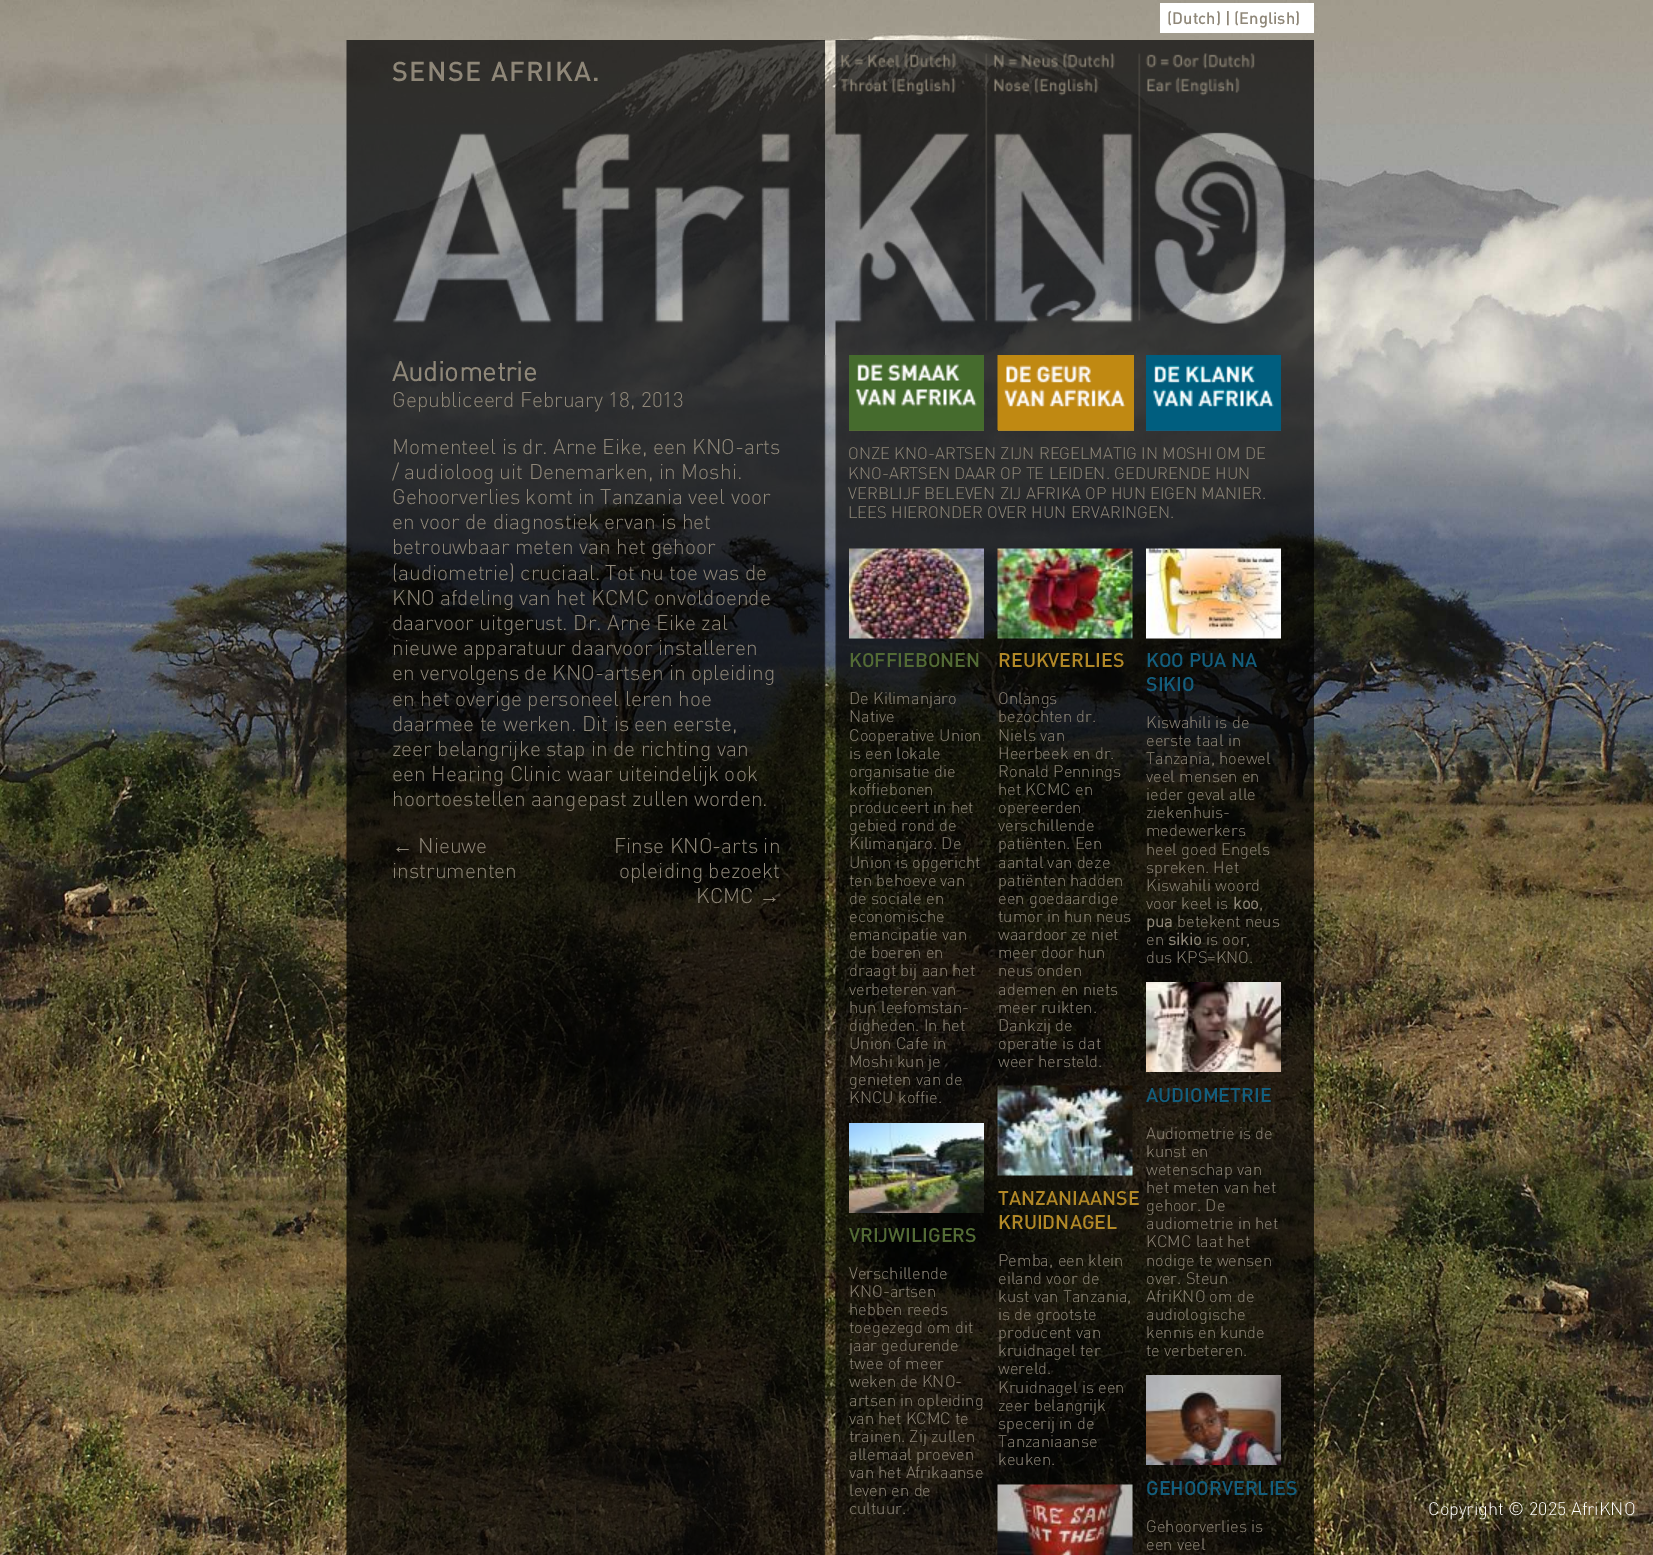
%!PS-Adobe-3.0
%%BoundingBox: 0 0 1653 1555
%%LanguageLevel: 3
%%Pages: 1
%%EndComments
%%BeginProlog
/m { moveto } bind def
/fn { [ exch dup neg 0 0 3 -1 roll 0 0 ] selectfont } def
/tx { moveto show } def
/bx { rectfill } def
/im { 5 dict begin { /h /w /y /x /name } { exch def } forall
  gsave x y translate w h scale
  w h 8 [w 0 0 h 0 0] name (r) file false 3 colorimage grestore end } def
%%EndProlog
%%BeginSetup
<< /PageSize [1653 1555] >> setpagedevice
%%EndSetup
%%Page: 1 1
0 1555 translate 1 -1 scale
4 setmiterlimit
1 setgray
0 0 1653 1555 bx
(image0.raw) 0 0 1653 1555 im
1160 3 154 30 bx
/DIN-Medium 16.5 fn
0.561 0.529 0.471 setrgbcolor
(\(Dutch\) | \(English\)) 1167 24 tx
(image1.raw) 346 40 479 315 im
/DIN-Medium 27 fn
392 81 m 1.4 0 (SENSE AFRIKA.) ashow
(image2.raw) 835 40 479 315 im
(image3.raw) 346 355 968 1200 im
/DIN-Bold 27 fn
(Audiometrie) 392 381 tx
/DIN-Light 21 fn
(Gepubliceerd February 18, 2013) 392 407 tx
(Momenteel is dr. Arne Eike, een KNO-arts) 392 454 tx
(/ audioloog uit Denemarken, in Moshi.) 392 479 tx
(Gehoorverlies komt in Tanzania veel voor) 392 504 tx
(en voor de diagnostiek ervan is het) 392 529 tx
(betrouwbaar meten van het gehoor) 392 554 tx
(\(audiometrie\) cruciaal. Tot nu toe was de) 392 580 tx
(KNO afdeling van het KCMC onvoldoende) 392 605 tx
(daarvoor uitgerust. Dr. Arne Eike zal) 392 630 tx
(nieuwe apparatuur daarvoor installeren) 392 655 tx
(en vervolgens de KNO-artsen in opleiding) 392 680 tx
(en het overige personeel leren hoe) 392 706 tx
(daarmee te werken. Dit is een eerste,) 392 731 tx
(zeer belangrijke stap in de richting van) 392 756 tx
(een Hearing Clinic waar uiteindelijk ook) 392 781 tx
(hoortoestellen aangepast zullen worden.) 392 806 tx
/LiberationSans-Regular 21 fn
(←) 392 853 tx
/DIN-Light 21 fn
(Nieuwe) 418 853 tx
(instrumenten) 392 878 tx
(Finse KNO-arts in) 614 853 tx
(opleiding bezoekt) 619 878 tx
(KCMC) 696 903 tx
/LiberationSans-Regular 21 fn
(→) 759 903 tx
0.325 0.42 0.208 setrgbcolor
849 430 135 1 bx
(image4.raw) 849 355 135 75 im
0.694 0.533 0.153 setrgbcolor
998 430 136 1 bx
(image5.raw) 997 355 137 75 im
0.075 0.369 0.49 setrgbcolor
1146 430 135 1 bx
(image6.raw) 1146 355 135 75 im
/DIN-Light 16.5 fn
0.561 0.529 0.471 setrgbcolor
(ONZE KNO-ARTSEN ZIJN REGELMATIG IN MOSHI OM DE) 848 459 tx
(KNO-ARTSEN DAAR OP TE LEIDEN. GEDURENDE HUN) 848 479 tx
(VERBLIJF BELEVEN ZIJ AFRIKA OP HUN EIGEN MANIER.) 848 499 tx
(LEES HIERONDER OVER HUN ERVARINGEN.) 848 518 tx
(image7.raw) 849 548 135 91 im
/DIN-Medium 19.5 fn
0.325 0.42 0.208 setrgbcolor
(KOFFIEBONEN) 849 667 tx
/DIN-Light 16.5 fn
0.561 0.529 0.471 setrgbcolor
(De Kilimanjaro) 849 704 tx
(Native) 849 722 tx
(Cooperative Union) 849 741 tx
(is een lokale) 849 759 tx
(organisatie die) 849 777 tx
(koffiebonen) 849 795 tx
(produceert in het) 849 813 tx
(gebied rond de) 849 831 tx
(Kilimanjaro. De) 849 849 tx
(Union is opgericht) 849 868 tx
(ten behoeve van) 849 886 tx
(de sociale en) 849 904 tx
(economische) 849 922 tx
(emancipatie van) 849 940 tx
(de boeren en) 849 958 tx
(draagt bij aan het) 849 976 tx
(verbeteren van) 849 995 tx
(hun leefomstan-) 849 1013 tx
(digheden. In het) 849 1031 tx
(Union Cafe in) 849 1049 tx
(Moshi kun je) 849 1067 tx
(genieten van de) 849 1085 tx
(KNCU koffie.) 849 1103 tx
(image8.raw) 849 1123 135 90 im
/DIN-Medium 19.5 fn
0.325 0.42 0.208 setrgbcolor
(VRIJWILIGERS) 849 1242 tx
/DIN-Light 16.5 fn
0.561 0.529 0.471 setrgbcolor
(Verschillende) 849 1279 tx
(KNO-artsen) 849 1297 tx
(hebben reeds) 849 1315 tx
(toegezegd om dit) 849 1333 tx
(jaar gedurende) 849 1351 tx
(twee of meer) 849 1369 tx
(weken de KNO-) 849 1387 tx
(artsen in opleiding) 849 1406 tx
(van het KCMC te) 849 1424 tx
(trainen. Zij zullen) 849 1442 tx
(allemaal proeven) 849 1460 tx
(van het Afrikaanse) 849 1478 tx
(leven en de) 849 1496 tx
(cultuur.) 849 1514 tx
(image9.raw) 997 548 136 91 im
/DIN-Medium 19.5 fn
0.694 0.533 0.153 setrgbcolor
(REUKVERLIES) 998 667 tx
/DIN-Light 16.5 fn
0.561 0.529 0.471 setrgbcolor
(Onlangs) 998 704 tx
(bezochten dr.) 998 722 tx
(Niels van) 998 741 tx
(Heerbeek en dr.) 998 759 tx
(Ronald Pennings) 998 777 tx
(het KCMC en) 998 795 tx
(opereerden) 998 813 tx
(verschillende) 998 831 tx
(patiënten. Een) 998 849 tx
(aantal van deze) 998 868 tx
(patiënten hadden) 998 886 tx
(een goedaardige) 998 904 tx
(tumor in hun neus) 998 922 tx
(waardoor ze niet) 998 940 tx
(meer door hun) 998 958 tx
(neus onden) 998 976 tx
(ademen en niets) 998 995 tx
(meer ruikten.) 998 1013 tx
(Dankzij de) 998 1031 tx
(operatie is dat) 998 1049 tx
(weer hersteld.) 998 1067 tx
(image10.raw) 997 1085 136 91 im
/DIN-Medium 19.5 fn
0.694 0.533 0.153 setrgbcolor
(TANZANIAANSE) 998 1205 tx
(KRUIDNAGEL) 998 1229 tx
/DIN-Light 16.5 fn
0.561 0.529 0.471 setrgbcolor
(Pemba, een klein) 998 1266 tx
(eiland voor de) 998 1284 tx
(kust van Tanzania,) 998 1302 tx
(is de grootste) 998 1320 tx
(producent van) 998 1338 tx
(kruidnagel ter) 998 1356 tx
(wereld.) 998 1374 tx
(Kruidnagel is een) 998 1393 tx
(zeer belangrijk) 998 1411 tx
(specerij in de) 998 1429 tx
(Tanzaniaanse) 998 1447 tx
(keuken.) 998 1465 tx
(image11.raw) 997 1484 136 71 im
(image12.raw) 1146 548 135 91 im
/DIN-Medium 19.5 fn
0.075 0.369 0.49 setrgbcolor
(KOO PUA NA) 1146 667 tx
(SIKIO) 1146 691 tx
/DIN-Light 16.5 fn
0.561 0.529 0.471 setrgbcolor
(Kiswahili is de) 1146 728 tx
(eerste taal in) 1146 746 tx
(Tanzania, hoewel) 1146 764 tx
(veel mensen en) 1146 782 tx
(ieder geval alle) 1146 800 tx
(ziekenhuis-) 1146 818 tx
(medewerkers) 1146 836 tx
(heel goed Engels) 1146 855 tx
(spreken. Het) 1146 873 tx
(Kiswahili woord) 1146 891 tx
(voor keel is) 1146 909 tx
/DIN-Bold 16.5 fn
(koo) 1233 909 tx
/DIN-Light 16.5 fn
(,) 1259 909 tx
/DIN-Bold 16.5 fn
(pua) 1146 927 tx
/DIN-Light 16.5 fn
(betekent neus) 1177 927 tx
(en) 1146 945 tx
/DIN-Bold 16.5 fn
(sikio) 1168 945 tx
/DIN-Light 16.5 fn
(is oor,) 1206 945 tx
(dus KPS=KNO.) 1146 963 tx
(image13.raw) 1146 982 135 90 im
/DIN-Medium 19.5 fn
0.075 0.369 0.49 setrgbcolor
(AUDIOMETRIE) 1146 1102 tx
/DIN-Light 16.5 fn
0.561 0.529 0.471 setrgbcolor
(Audiometrie is de) 1146 1139 tx
(kunst en) 1146 1157 tx
(wetenschap van) 1146 1175 tx
(het meten van het) 1146 1193 tx
(gehoor. De) 1146 1211 tx
(audiometrie in het) 1146 1229 tx
(KCMC laat het) 1146 1247 tx
(nodige te wensen) 1146 1266 tx
(over. Steun) 1146 1284 tx
(AfriKNO om de) 1146 1302 tx
(audiologische) 1146 1320 tx
(kennis en kunde) 1146 1338 tx
(te verbeteren.) 1146 1356 tx
(image14.raw) 1146 1375 135 90 im
/DIN-Medium 19.5 fn
0.075 0.369 0.49 setrgbcolor
(GEHOORVERLIES) 1146 1495 tx
/DIN-Light 16.5 fn
0.561 0.529 0.471 setrgbcolor
(Gehoorverlies is) 1146 1532 tx
(een veel) 1146 1550 tx
/DIN-Light 18 fn
1 setgray
(Copyright © 2025 AfriKNO) 1428 1515 tx
showpage
%%EOF
